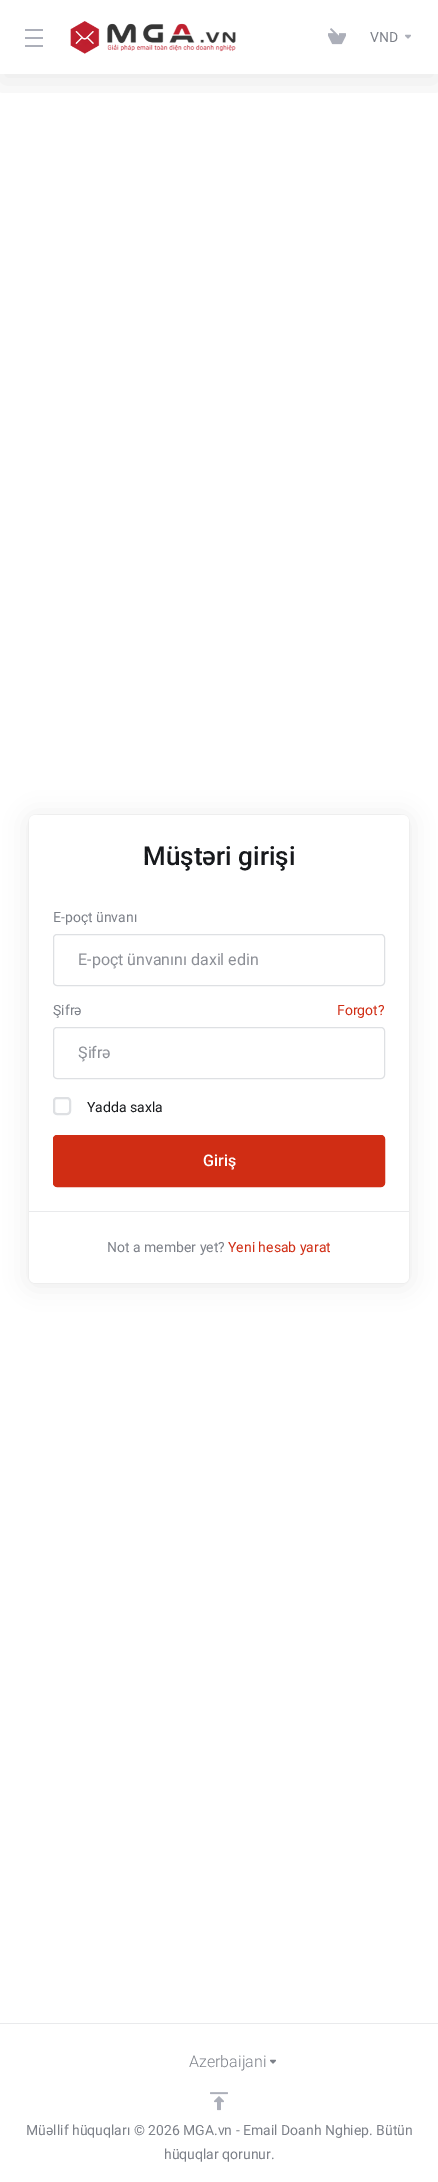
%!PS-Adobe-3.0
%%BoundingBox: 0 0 438 2182
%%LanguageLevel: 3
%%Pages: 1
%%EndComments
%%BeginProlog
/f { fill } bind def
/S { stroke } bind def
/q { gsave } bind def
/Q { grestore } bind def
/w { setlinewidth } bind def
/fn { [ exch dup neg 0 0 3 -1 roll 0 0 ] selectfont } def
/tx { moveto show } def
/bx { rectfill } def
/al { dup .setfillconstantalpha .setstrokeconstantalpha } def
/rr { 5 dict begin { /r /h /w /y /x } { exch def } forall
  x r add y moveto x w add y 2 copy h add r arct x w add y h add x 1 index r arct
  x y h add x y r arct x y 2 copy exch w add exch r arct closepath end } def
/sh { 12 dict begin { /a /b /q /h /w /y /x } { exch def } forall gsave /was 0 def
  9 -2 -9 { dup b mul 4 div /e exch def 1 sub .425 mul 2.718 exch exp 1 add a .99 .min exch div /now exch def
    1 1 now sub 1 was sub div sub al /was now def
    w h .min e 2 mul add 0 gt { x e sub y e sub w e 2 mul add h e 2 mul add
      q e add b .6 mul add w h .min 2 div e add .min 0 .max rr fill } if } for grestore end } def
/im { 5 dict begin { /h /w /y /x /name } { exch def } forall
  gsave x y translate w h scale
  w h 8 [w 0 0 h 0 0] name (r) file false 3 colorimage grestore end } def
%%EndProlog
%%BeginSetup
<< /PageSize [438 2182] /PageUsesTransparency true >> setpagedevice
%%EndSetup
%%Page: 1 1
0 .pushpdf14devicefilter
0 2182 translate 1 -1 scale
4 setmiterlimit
1 setgray
0 0 438 2182 bx
q
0 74 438 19 rectclip
0 setgray
0 8 438 74 0 16 0.08 sh
Q
0.675 0.686 0.725 setrgbcolor
25 29 18 2 bx
25 37 18 2 bx
25 45 18 2 bx
(image0.raw) 70 21 166 33 im
(image1.raw) 328 28 18 17 im
/Roboto-Regular 14 fn
0.486 0.502 0.533 setrgbcolor
(VND) 370 42 tx
(image2.raw) 405 34 6 5 im
0 setgray
29 817 380 468 6 12 0.08 sh
29 815 380 468 6 0.5 0.1 sh
1 setgray
29 815 380 468 6 rr f
/Roboto-Medium 26 fn
0.09 0.098 0.11 setrgbcolor
(Müştəri girişi) 143 865 tx
/Roboto-Regular 14 fn
0.486 0.502 0.533 setrgbcolor
(E-poçt ünvanı) 53 922 tx
0.871 0.878 0.89 setrgbcolor
53.5 934.5 331 51 3.5 rr S
/Roboto-Regular 16 fn
0.549 0.561 0.588 setrgbcolor
(E-poçt ünvanını daxil edin) 78 965 tx
/Roboto-Regular 14 fn
0.486 0.502 0.533 setrgbcolor
(Şifrə) 53 1015 tx
0.816 0.176 0.078 setrgbcolor
(Forgot?) 337 1015 tx
0.871 0.878 0.89 setrgbcolor
53.5 1027.5 331 51 3.5 rr S
/Roboto-Regular 16 fn
0.549 0.561 0.588 setrgbcolor
(Şifrə) 78 1058 tx
0.871 0.878 0.89 setrgbcolor
2 w
54 1098 16 16 3 rr S
/Roboto-Regular 14 fn
0.09 0.098 0.11 setrgbcolor
(Yadda saxla) 87 1112 tx
0.816 0.176 0.078 setrgbcolor
53.5 1135.5 331 51 3.5 rr q f Q
1 w
S
/Roboto-Medium 16 fn
1 setgray
(Giriş) 203 1166 tx
0.914 0.918 0.925 setrgbcolor
29 1211 380 1 bx
/Roboto-Regular 14 fn
0.486 0.502 0.533 setrgbcolor
(Not a member yet?) 107 1252 tx
0.816 0.176 0.078 setrgbcolor
(Yeni hesab yarat) 228 1252 tx
0.914 0.918 0.925 setrgbcolor
0 2023 438 1 bx
/Roboto-Light 16 fn
0.486 0.502 0.533 setrgbcolor
(Azerbaijani) 189 2067 tx
(image3.raw) 270 2059 6 5 im
(image4.raw) 210 2092 18 19 im
/Roboto-Regular 14 fn
(Müəllif hüquqları © 2026 MGA.vn - Email Doanh Nghiep. Bütün) 26 2135 tx
(hüquqlar qorunur.) 164 2159 tx
.poppdf14devicefilter showpage
%%EOF
